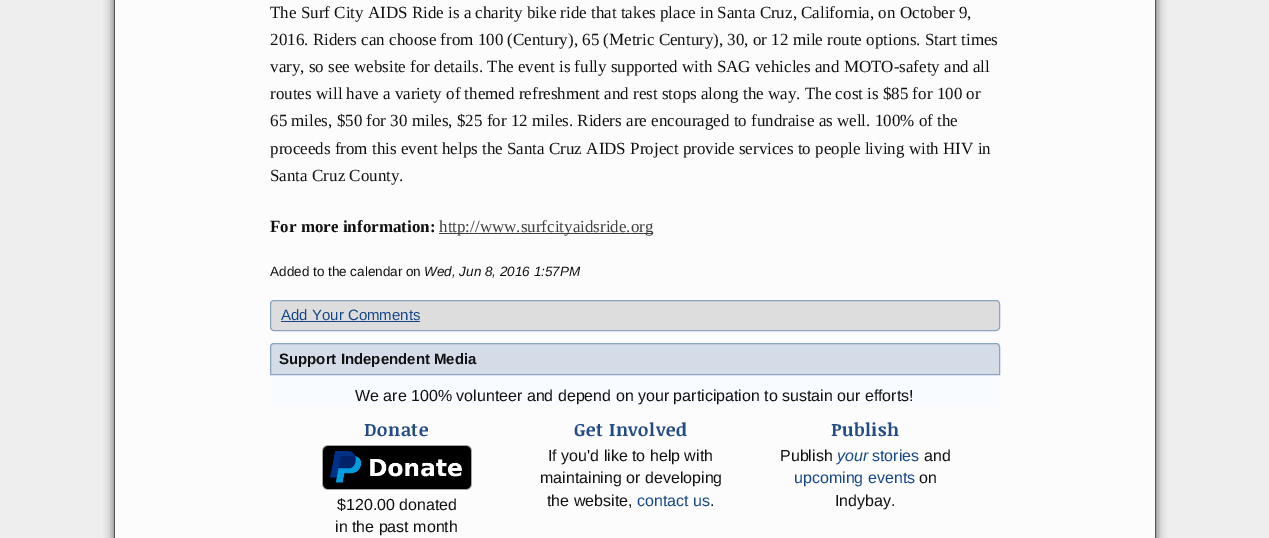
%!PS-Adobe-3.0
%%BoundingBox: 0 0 1269 538
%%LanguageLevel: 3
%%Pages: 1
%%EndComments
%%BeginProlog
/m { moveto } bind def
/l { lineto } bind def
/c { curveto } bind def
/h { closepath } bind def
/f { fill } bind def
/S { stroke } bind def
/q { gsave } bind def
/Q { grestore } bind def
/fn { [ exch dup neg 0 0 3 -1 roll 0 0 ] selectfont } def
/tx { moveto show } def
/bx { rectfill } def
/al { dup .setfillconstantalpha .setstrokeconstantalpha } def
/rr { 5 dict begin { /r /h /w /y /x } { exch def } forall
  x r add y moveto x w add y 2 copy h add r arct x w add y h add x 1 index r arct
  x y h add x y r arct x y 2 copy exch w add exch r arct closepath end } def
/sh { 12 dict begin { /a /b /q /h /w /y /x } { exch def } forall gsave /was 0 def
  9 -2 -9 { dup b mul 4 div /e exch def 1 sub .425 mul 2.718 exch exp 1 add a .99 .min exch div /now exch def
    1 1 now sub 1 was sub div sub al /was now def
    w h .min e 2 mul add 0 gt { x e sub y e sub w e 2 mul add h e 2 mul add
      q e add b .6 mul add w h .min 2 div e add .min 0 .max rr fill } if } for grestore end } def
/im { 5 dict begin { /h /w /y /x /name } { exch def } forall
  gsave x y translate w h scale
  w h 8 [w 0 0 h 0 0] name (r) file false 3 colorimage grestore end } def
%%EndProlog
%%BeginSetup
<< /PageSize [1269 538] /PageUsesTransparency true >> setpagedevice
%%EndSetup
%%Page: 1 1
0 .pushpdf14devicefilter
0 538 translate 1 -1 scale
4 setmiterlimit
0.933 setgray
0 0 1269 538 bx
0 setgray
114 -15 1042 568 0 5 0.65 sh
0.988 setgray
115 0 1040 538 bx
0.345 setgray
1155 0 1 538 bx
114 0 1 538 bx
/LiberationSerif-Regular 17 fn
0.067 setgray
(The Surf City AIDS Ride is a charity bike ride that takes place in Santa Cruz, California, on October 9,) 270 18 tx
(2016. Riders can choose from 100 \(Century\), 65 \(Metric Century\), 30, or 12 mile route options. Start times) 270 45 tx
(vary, so see website for details. The event is fully supported with SAG vehicles and MOTO-safety and all) 270 72 tx
(routes will have a variety of themed refreshment and rest stops along the way. The cost is $85 for 100 or) 270 99 tx
(65 miles, $50 for 30 miles, $25 for 12 miles. Riders are encouraged to fundraise as well. 100% of the) 270 126 tx
(proceeds from this event helps the Santa Cruz AIDS Project provide services to people living with HIV in) 270 154 tx
(Santa Cruz County.) 270 181 tx
/LiberationSerif-Bold 17 fn
(For more information:) 270 232 tx
0.251 setgray
439 233 214 1 bx
/LiberationSerif-Regular 17 fn
(http://www.surfcityaidsride.org) 439 232 tx
/LiberationSans-Regular 13.5 fn
0.067 setgray
(Added to the calendar on) 270 276 tx
/LiberationSans-Italic 13.5 fn
(Wed, Jun 8, 2016 1:57PM) 424 276 tx
0.867 setgray
270.5 300.5 729 30 3.5 rr q f Q
0.553 0.639 0.769 setrgbcolor
S
/LiberationSans-Regular 15 fn
0.086 0.282 0.533 setrgbcolor
(Add Your Comments) 281 320 tx
281 321 139 1 bx
0.973 0.984 1 setrgbcolor
270 343 m 1000 343 l 1000 402 l 1000 404 998 406 996 406 c 274 406 l 272 406 270 404 270 402 c h f
0.831 0.863 0.91 setrgbcolor
274 343.5 m 996 343.5 l 998 343.5 999.5 345 999.5 347 c 999.5 374.5 l 270.5 374.5 l 270.5 347 l 270.5 345 272 343.5 274 343.5 c h q f Q
0.553 0.639 0.769 setrgbcolor
S
/LiberationSans-Bold 15 fn
0.067 setgray
(Support Independent Media) 279 364 tx
/LiberationSans-Regular 16 fn
(We are 100% volunteer and depend on your participation to sustain our efforts!) 355 401 tx
/NoticiaText-Bold 18 fn
0.137 0.298 0.525 setrgbcolor
364 436 m 0.5 0 (Donate) ashow
(image0.raw) 322 445 150 45 im
/LiberationSans-Regular 16 fn
0.067 setgray
($120.00 donated) 337 510 tx
(in the past month) 335 532 tx
/NoticiaText-Bold 18 fn
0.137 0.298 0.525 setrgbcolor
574 436 m 0.5 0 (Get Involved) ashow
/LiberationSans-Regular 16 fn
0.067 setgray
(If you'd like to help with) 548 461 tx
(maintaining or developing) 540 483 tx
(the website,) 547 506 tx
0.086 0.282 0.533 setrgbcolor
(contact us) 637 506 tx
0.067 setgray
(.) 710 506 tx
/NoticiaText-Bold 18 fn
0.137 0.298 0.525 setrgbcolor
831 436 m 0.5 0 (Publish) ashow
/LiberationSans-Regular 16 fn
0.067 setgray
(Publish) 780 461 tx
/LiberationSans-Italic 16 fn
0.086 0.282 0.533 setrgbcolor
(your) 837 461 tx
/LiberationSans-Regular 16 fn
(stories) 872 461 tx
0.067 setgray
(and) 924 461 tx
0.086 0.282 0.533 setrgbcolor
(upcoming events) 794 483 tx
0.067 setgray
(on) 919 483 tx
(Indybay.) 835 506 tx
.poppdf14devicefilter showpage
%%EOF
